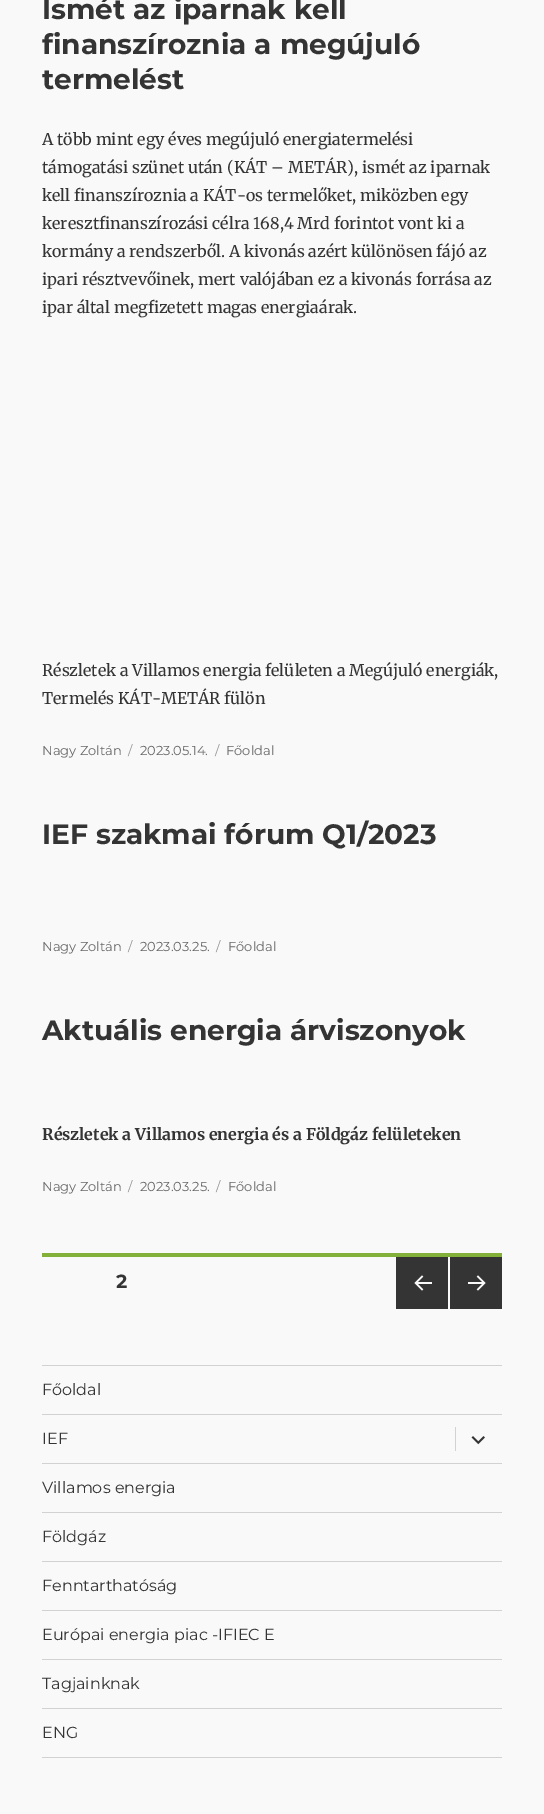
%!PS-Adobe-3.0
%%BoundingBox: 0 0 544 1814
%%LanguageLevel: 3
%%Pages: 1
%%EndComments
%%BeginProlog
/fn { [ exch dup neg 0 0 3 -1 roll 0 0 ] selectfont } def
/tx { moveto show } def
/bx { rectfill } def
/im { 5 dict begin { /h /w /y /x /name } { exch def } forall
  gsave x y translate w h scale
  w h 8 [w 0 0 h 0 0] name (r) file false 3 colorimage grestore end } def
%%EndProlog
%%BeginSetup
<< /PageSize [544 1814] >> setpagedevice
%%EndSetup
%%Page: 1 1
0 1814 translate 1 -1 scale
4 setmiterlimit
0.976 setgray
0 0 544 1814 bx
/Montserrat-Bold 28 fn
0.204 setgray
(Ismét az iparnak kell) 42 19 tx
(finanszíroznia a megújuló) 42 54 tx
(termelést) 42 89 tx
/Merriweather-Regular 16 fn
(A több mint egy éves megújuló energiatermelési) 42 145 tx
(támogatási szünet után \(KÁT – METÁR\), ismét az iparnak) 42 173 tx
(kell finanszíroznia a KÁT-os termelőket, miközben egy) 42 201 tx
(keresztfinanszírozási célra 168,4 Mrd forintot vont ki a) 42 229 tx
(kormány a rendszerből. A kivonás azért különösen fájó az) 42 257 tx
(ipari résztvevőinek, mert valójában ez a kivonás forrása az) 42 285 tx
(ipar által megfizetett magas energiaárak.) 42 313 tx
(Részletek a Villamos energia felületen a Megújuló energiák,) 42 676 tx
(Termelés KÁT-METÁR fülön) 42 704 tx
/Montserrat-Regular 13 fn
0.408 setgray
(Nagy Zoltán) 42 755 tx
0.58 setgray
(/) 128 755 tx
0.408 setgray
(2023.05.14.) 140 755 tx
0.58 setgray
(/) 215 755 tx
0.408 setgray
(Főoldal) 226 755 tx
/Montserrat-Bold 28 fn
0.204 setgray
(IEF szakmai fórum Q1/2023) 42 844 tx
/Montserrat-Regular 13 fn
0.408 setgray
(Nagy Zoltán) 42 951 tx
0.58 setgray
(/) 128 951 tx
0.408 setgray
(2023.03.25.) 140 951 tx
0.58 setgray
(/) 216 951 tx
0.408 setgray
(Főoldal) 228 951 tx
/Montserrat-Bold 28 fn
0.204 setgray
(Aktuális energia árviszonyok) 42 1040 tx
/Merriweather-Bold 16 fn
(Részletek a Villamos energia és a Földgáz felületeken) 42 1140 tx
/Montserrat-Regular 13 fn
0.408 setgray
(Nagy Zoltán) 42 1191 tx
0.58 setgray
(/) 128 1191 tx
0.408 setgray
(2023.03.25.) 140 1191 tx
0.58 setgray
(/) 216 1191 tx
0.408 setgray
(Főoldal) 228 1191 tx
0.514 0.69 0.22 setrgbcolor
42 1253 460 4 bx
/Montserrat-Bold 19 fn
0.204 setgray
(2) 116 1288 tx
396 1257 52 52 bx
(image0.raw) 414 1275 18 16 im
450 1257 52 52 bx
(image1.raw) 468 1275 18 16 im
0.824 setgray
42 1757 460 1 bx
42 1365 460 1 bx
/Montserrat-Regular 16 fn
0.204 setgray
(Főoldal) 42 1395 tx
0.824 setgray
42 1414 460 1 bx
0.204 setgray
(IEF) 42 1444 tx
0.824 setgray
455 1427 1 24 bx
(image2.raw) 471 1436 14 9 im
42 1463 460 1 bx
0.204 setgray
(Villamos energia) 42 1493 tx
0.824 setgray
42 1512 460 1 bx
0.204 setgray
(Földgáz) 42 1542 tx
0.824 setgray
42 1561 460 1 bx
0.204 setgray
(Fenntarthatóság) 42 1591 tx
0.824 setgray
42 1610 460 1 bx
0.204 setgray
(Európai energia piac -IFIEC E) 42 1640 tx
0.824 setgray
42 1659 460 1 bx
0.204 setgray
(Tagjainknak) 42 1689 tx
0.824 setgray
42 1708 460 1 bx
0.204 setgray
(ENG) 42 1738 tx
showpage
%%EOF
